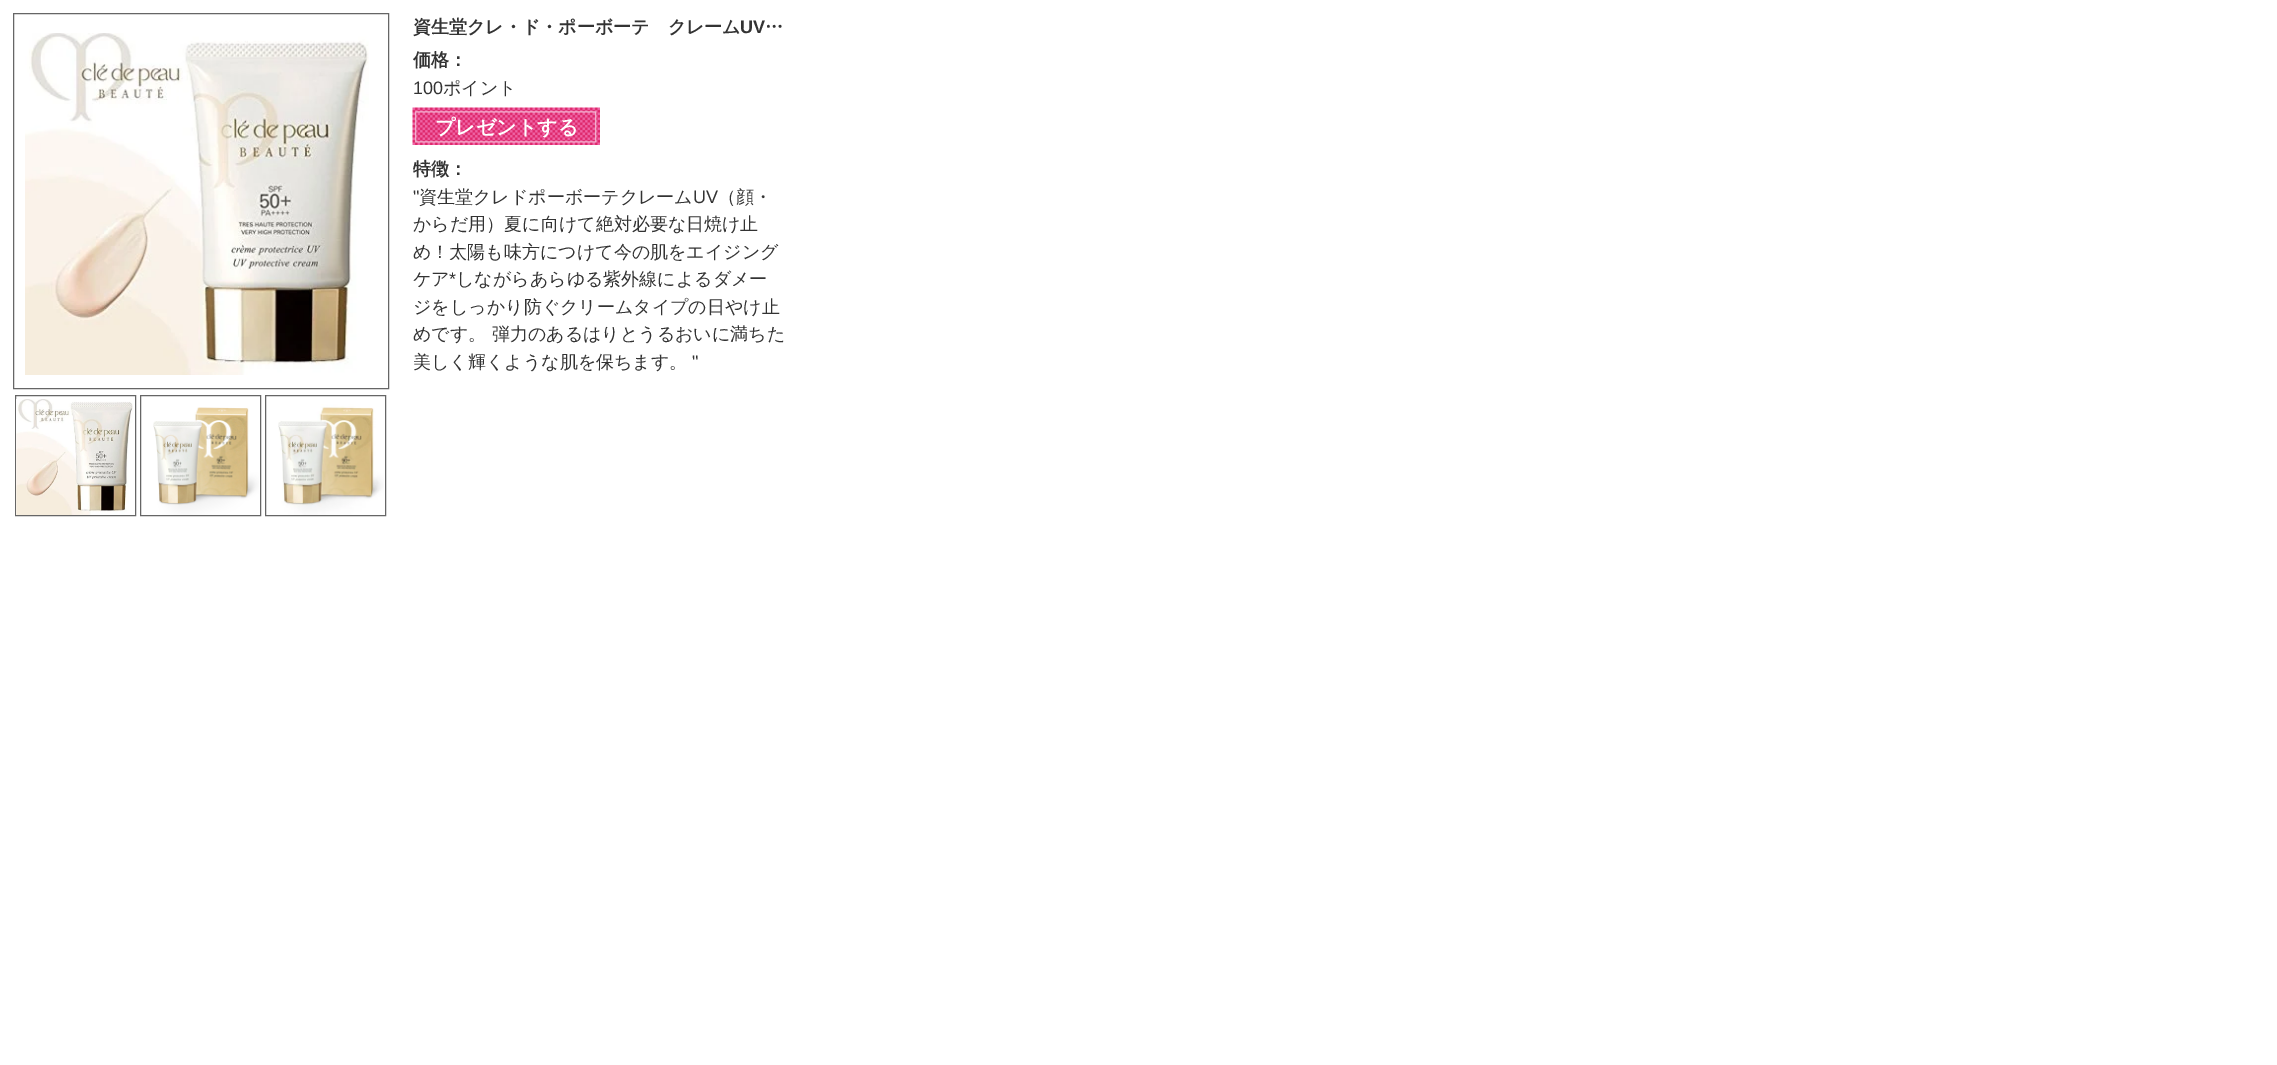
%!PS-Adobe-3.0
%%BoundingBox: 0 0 2277 1065
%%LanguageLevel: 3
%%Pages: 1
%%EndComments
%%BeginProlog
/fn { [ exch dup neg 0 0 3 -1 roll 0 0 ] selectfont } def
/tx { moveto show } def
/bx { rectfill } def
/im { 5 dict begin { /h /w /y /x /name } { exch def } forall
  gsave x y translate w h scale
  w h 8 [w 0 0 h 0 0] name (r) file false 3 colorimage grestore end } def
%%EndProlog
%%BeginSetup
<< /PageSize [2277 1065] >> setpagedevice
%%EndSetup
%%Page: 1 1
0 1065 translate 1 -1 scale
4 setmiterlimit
1 setgray
0 0 2277 1065 bx
0.4 setgray
13.5 13.5 375 375 rectstroke
(image0.raw) 25 33 344 342 im
15.5 395.5 120 120 rectstroke
(image1.raw) 16 399 117 116 im
140.5 395.5 120 120 rectstroke
(image2.raw) 153 407 106 108 im
265.5 395.5 120 120 rectstroke
(image3.raw) 278 404 106 111 im
/WenQuanYiZenHei-Bold 18 fn
0.2 setgray
(資生堂クレ・ド・ポーボーテ　クレーム) 413 33 tx
/LiberationSans-Bold 18 fn
(UV) 740 33 tx
/WenQuanYiZenHei-Bold 18 fn
(…) 765 33 tx
(価格：) 413 66 tx
/LiberationSans-Regular 18 fn
(100) 413 94 tx
/WenQuanYiZenHei-Medium 18 fn
(ポイント) 443 94 tx
(image4.raw) 412 107 188 38 im
/WenQuanYiZenHei-Bold 20 fn
1 setgray
(プレゼントする) 435 134 tx
/WenQuanYiZenHei-Bold 18 fn
0.2 setgray
(特徴：) 413 175 tx
/LiberationSans-Regular 18 fn
(") 413 203 tx
/WenQuanYiZenHei-Medium 18 fn
(資生堂クレドポーボーテクレーム) 419 203 tx
/LiberationSans-Regular 18 fn
(UV) 693 203 tx
/WenQuanYiZenHei-Medium 18 fn
(（顔・) 718 203 tx
(からだ用）夏に向けて絶対必要な日焼け止) 413 230 tx
(め！太陽も味方につけて今の肌をエイジング) 413 258 tx
(ケア) 413 285 tx
/LiberationSans-Regular 18 fn
(*) 449 285 tx
/WenQuanYiZenHei-Medium 18 fn
(しながらあらゆる紫外線によるダメー) 456 285 tx
(ジをしっかり防ぐクリームタイプの日やけ止) 413 313 tx
(めです。 弾力のあるはりとうるおいに満ちた) 413 340 tx
(美しく輝くような肌を保ちます。) 413 368 tx
/LiberationSans-Regular 18 fn
(") 692 368 tx
showpage
%%EOF
